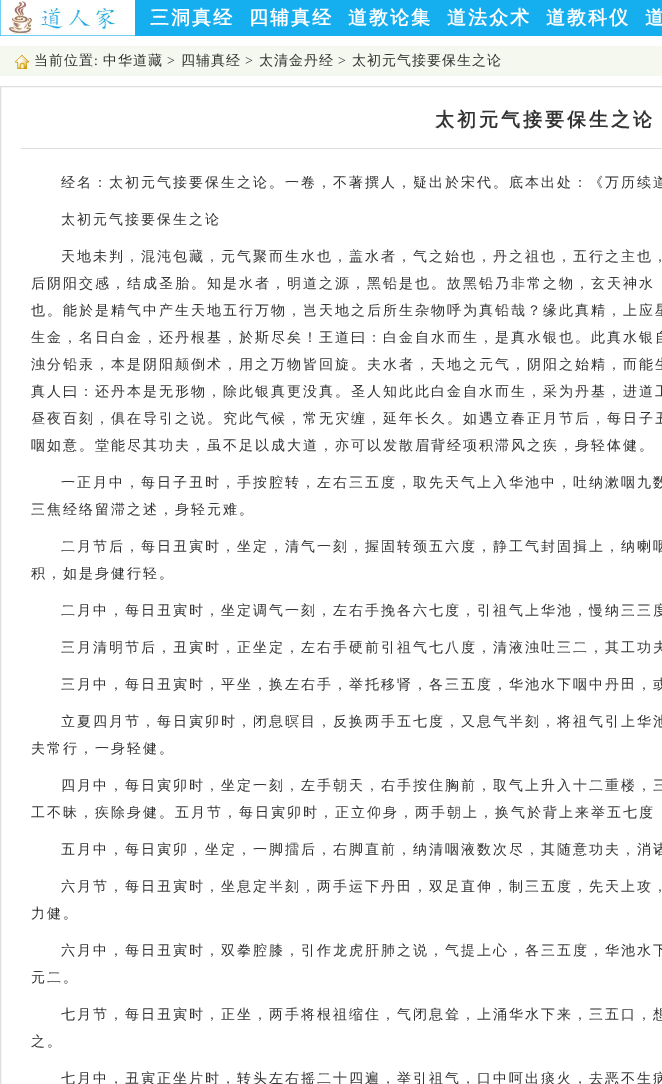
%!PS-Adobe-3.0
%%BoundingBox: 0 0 662 1084
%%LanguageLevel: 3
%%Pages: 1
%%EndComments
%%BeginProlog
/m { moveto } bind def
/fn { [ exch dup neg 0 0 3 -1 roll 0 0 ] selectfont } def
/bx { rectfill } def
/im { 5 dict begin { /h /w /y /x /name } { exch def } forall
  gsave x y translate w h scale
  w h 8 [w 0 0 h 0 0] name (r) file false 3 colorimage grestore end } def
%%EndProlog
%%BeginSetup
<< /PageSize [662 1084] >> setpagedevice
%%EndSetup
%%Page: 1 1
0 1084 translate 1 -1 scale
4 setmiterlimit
1 setgray
0 0 662 1084 bx
(image0.raw) 0 0 135 36 im
0.082 0.686 0.937 setrgbcolor
135 0 527 36 bx
/WenQuanYiZenHei-Bold 19 fn
1 setgray
150 24 m 2 0 (三洞真经) ashow
249 24 m 2 0 (四辅真经) ashow
348 24 m 2 0 (道教论集) ashow
447 24 m 2 0 (道法众术) ashow
546 24 m 2 0 (道教科仪) ashow
645 24 m 2 0 (道) ashow
0.957 0.973 0.933 setrgbcolor
0 46 662 30 bx
(image1.raw) 15 55 14 14 im
/WenQuanYiZenHei-Medium 14 fn
0.2 setgray
34 65 m 1 0 (当前位置) ashow
/LiberationSerif-Regular 14 fn
94 65 m 1 0 (:) ashow
/WenQuanYiZenHei-Medium 14 fn
103 65 m 1 0 (中华道藏) ashow
/LiberationSerif-Regular 14 fn
167 65 m 1 0 (>) ashow
/WenQuanYiZenHei-Medium 14 fn
181 65 m 1 0 (四辅真经) ashow
/LiberationSerif-Regular 14 fn
245 65 m 1 0 (>) ashow
/WenQuanYiZenHei-Medium 14 fn
259 65 m 1 0 (太清金丹经) ashow
/LiberationSerif-Regular 14 fn
338 65 m 1 0 (>) ashow
/WenQuanYiZenHei-Medium 14 fn
352 65 m 1 0 (太初元气接要保生之论) ashow
0.875 setgray
0.5 86.5 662 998 rectstroke
21 148 641 1 bx
/WenQuanYiZenHei-Bold 19 fn
0.2 setgray
435 126 m 3 0 (太初元气接要保生之论) ashow
/WenQuanYiZenHei-Medium 14 fn
61 187 m 2 0 (经名：太初元气接要保生之论。一卷，不著撰人，疑出於宋代。底本出处：《万历续道) ashow
61 224 m 2 0 (太初元气接要保生之论) ashow
61 261 m 2 0 (天地未判，混沌包藏，元气聚而生水也，盖水者，气之始也，丹之祖也，五行之主也，) ashow
31 288 m 2 0 (后阴阳交感，结成圣胎。知是水者，明道之源，黑铅是也。故黑铅乃非常之物，玄天神水) ashow
31 315 m 2 0 (也。能於是精气中产生天地五行万物，岂天地之后所生杂物呼为真铅哉？缘此真精，上应星) ashow
31 342 m 2 0 (生金，名日白金，还丹根基，於斯尽矣！王道曰：白金自水而生，是真水银也。此真水银自) ashow
31 369 m 2 0 (浊分铅汞，本是阴阳颠倒术，用之万物皆回旋。夫水者，天地之元气，阴阳之始精，而能生) ashow
31 396 m 2 0 (真人曰：还丹本是无形物，除此银真更没真。圣人知此此白金自水而生，采为丹基，进道工) ashow
31 423 m 2 0 (昼夜百刻，俱在导引之说。究此气候，常无灾缠，延年长久。如遇立春正月节后，每日子丑) ashow
31 450 m 2 0 (咽如意。堂能尽其功夫，虽不足以成大道，亦可以发散眉背经项积滞风之疾，身轻体健。) ashow
61 487 m 2 0 (一正月中，每日子丑时，手按腔转，左右三五度，取先天气上入华池中，吐纳漱咽九数) ashow
31 514 m 2 0 (三焦经络留滞之述，身轻元难。) ashow
61 551 m 2 0 (二月节后，每日丑寅时，坐定，清气一刻，握固转颈五六度，静工气封固揖上，纳喇咽) ashow
31 578 m 2 0 (积，如是身健行轻。) ashow
61 615 m 2 0 (二月中，每日丑寅时，坐定调气一刻，左右手挽各六七度，引祖气上华池，慢纳三三度) ashow
61 652 m 2 0 (三月清明节后，丑寅时，正坐定，左右手硬前引祖气七八度，清液浊吐三二，其工功夫) ashow
61 689 m 2 0 (三月中，每日丑寅时，平坐，换左右手，举托移肾，各三五度，华池水下咽中丹田，或) ashow
61 726 m 2 0 (立夏四月节，每日寅卯时，闭息暝目，反换两手五七度，又息气半刻，将祖气引上华池) ashow
31 753 m 2 0 (夫常行，一身轻健。) ashow
61 790 m 2 0 (四月中，每日寅卯时，坐定一刻，左手朝天，右手按住胸前，取气上升入十二重楼，三) ashow
31 817 m 2 0 (工不昧，疾除身健。五月节，每日寅卯时，正立仰身，两手朝上，换气於背上来举五七度) ashow
61 854 m 2 0 (五月中，每日寅卯，坐定，一脚擂后，右脚直前，纳清咽液数次尽，其随意功夫，消诸) ashow
61 891 m 2 0 (六月节，每日丑寅时，坐息定半刻，两手运下丹田，双足直伸，制三五度，先天上攻，) ashow
31 918 m 2 0 (力健。) ashow
61 955 m 2 0 (六月中，每日丑寅时，双拳腔膝，引作龙虎肝肺之说，气提上心，各三五度，华池水下) ashow
31 982 m 2 0 (元二。) ashow
61 1019 m 2 0 (七月节，每日丑寅时，正坐，两手将根祖缩住，气闭息耸，上涌华水下来，三五口，想) ashow
31 1046 m 2 0 (之。) ashow
61 1083 m 2 0 (七月中，丑寅正坐片时，转头左右摇二十四遍，举引祖气，口中呵出痰火，去恶不生病) ashow
showpage
%%EOF
